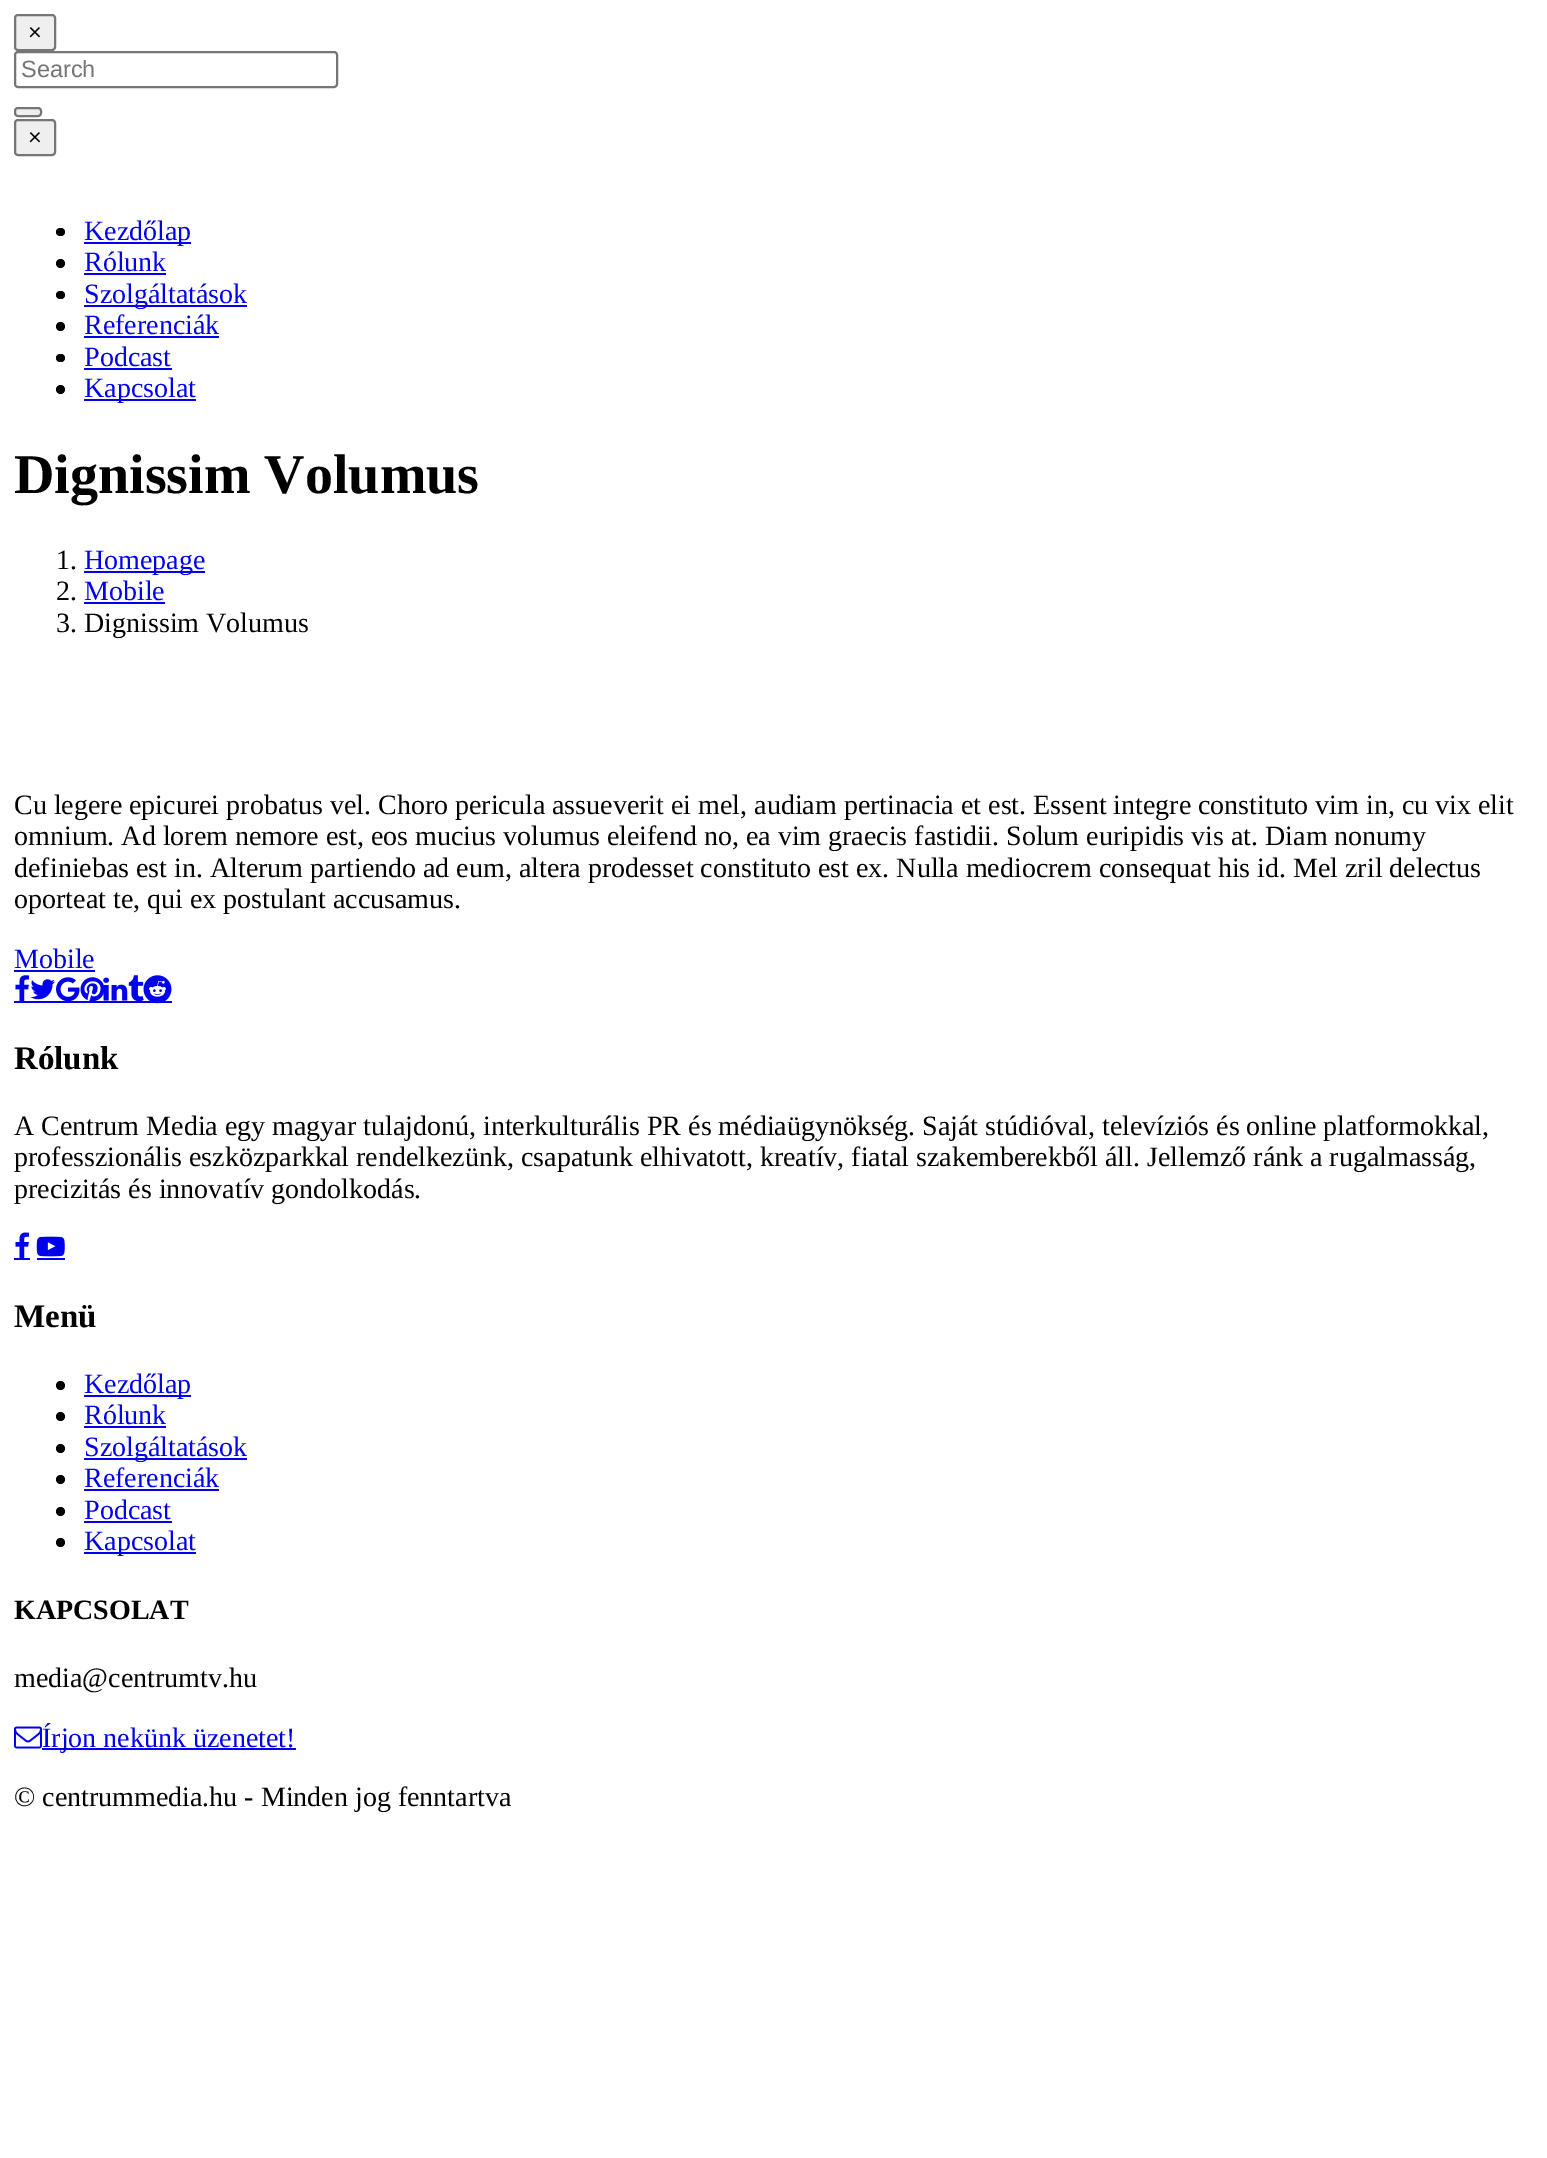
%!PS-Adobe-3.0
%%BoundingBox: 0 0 1547 2158
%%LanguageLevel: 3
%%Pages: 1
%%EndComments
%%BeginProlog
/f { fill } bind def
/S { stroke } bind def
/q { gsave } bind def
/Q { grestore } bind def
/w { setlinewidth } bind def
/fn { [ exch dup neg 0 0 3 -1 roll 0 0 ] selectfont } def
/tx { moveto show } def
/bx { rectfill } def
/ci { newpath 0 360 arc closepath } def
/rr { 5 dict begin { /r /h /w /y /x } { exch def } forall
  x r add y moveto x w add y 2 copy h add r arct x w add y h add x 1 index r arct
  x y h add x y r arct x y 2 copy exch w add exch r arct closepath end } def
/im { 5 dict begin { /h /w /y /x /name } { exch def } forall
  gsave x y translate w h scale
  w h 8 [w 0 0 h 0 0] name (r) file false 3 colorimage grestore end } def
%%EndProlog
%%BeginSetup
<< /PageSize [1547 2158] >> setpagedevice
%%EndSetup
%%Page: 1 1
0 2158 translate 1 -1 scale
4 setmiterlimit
1 setgray
0 0 1547 2158 bx
0.937 setgray
15 15 40 35 3 rr q f Q
0.463 setgray
2 w
S
/LiberationSans-Regular 23.5 fn
0 setgray
(×) 28 40 tx
0.463 setgray
15 52 322 35 3 rr S
0.459 setgray
(Search) 21 77 tx
0.937 setgray
15 108 26 8 3 rr q f Q
0.463 setgray
S
0.937 setgray
15 120 40 35 3 rr q f Q
0.463 setgray
S
0 setgray
(×) 28 145 tx
56 228 9 8 4 rr f
0 0 0.933 setrgbcolor
84 242 107 2 bx
/LiberationSerif-Regular 28 fn
(Kezdőlap) 84 240 tx
0 setgray
60.5 263.5 4.5 ci f
0 0 0.933 setrgbcolor
(Rólunk) 84 271 tx
84 273 82 2 bx
0 setgray
56 291 9 8 4 rr f
0 0 0.933 setrgbcolor
84 305 163 2 bx
(Szolgáltatások) 84 303 tx
0 setgray
60.5 326.5 4.5 ci f
0 0 0.933 setrgbcolor
(Referenciák) 84 334 tx
84 336 135 2 bx
0 setgray
56 354 9 8 4 rr f
0 0 0.933 setrgbcolor
(Podcast) 84 366 tx
84 368 88 2 bx
0 setgray
60.5 389.5 4.5 ci f
0 0 0.933 setrgbcolor
84 399 112 2 bx
(Kapcsolat) 84 397 tx
/LiberationSerif-Bold 56 fn
0 setgray
(Dignissim Volumus) 14 493 tx
/LiberationSerif-Regular 28 fn
(1.) 56 569 tx
0 0 0.933 setrgbcolor
84 571 121 2 bx
(Homepage) 84 569 tx
0 setgray
(2.) 56 600 tx
0 0 0.933 setrgbcolor
(Mobile) 84 600 tx
84 602 81 2 bx
0 setgray
(3. Dignissim Volumus) 56 632 tx
(Cu legere epicurei probatus vel. Choro pericula assueverit ei mel, audiam pertinacia et est. Essent integre constituto vim in, cu vix elit) 14 814 tx
(omnium. Ad lorem nemore est, eos mucius volumus eleifend no, ea vim graecis fastidii. Solum euripidis vis at. Diam nonumy) 14 845 tx
(definiebas est in. Alterum partiendo ad eum, altera prodesset constituto est ex. Nulla mediocrem consequat his id. Mel zril delectus) 14 877 tx
(oporteat te, qui ex postulant accusamus.) 14 908 tx
0 0 0.933 setrgbcolor
(Mobile) 14 968 tx
14 970 81 2 bx
(image0.raw) 15 975 14 26 im
14 1001 158 2 bx
(image1.raw) 30 979 25 21 im
(image2.raw) 56 977 24 24 im
(image3.raw) 80 977 24 24 im
(image4.raw) 103 977 25 24 im
(image5.raw) 128 975 16 26 im
(image6.raw) 143 975 29 29 im
/LiberationSerif-Bold 33 fn
0 setgray
(Rólunk) 14 1069 tx
/LiberationSerif-Regular 28 fn
(A Centrum Media egy magyar tulajdonú, interkulturális PR és médiaügynökség. Saját stúdióval, televíziós és online platformokkal,) 14 1135 tx
(professzionális eszközparkkal rendelkezünk, csapatunk elhivatott, kreatív, fiatal szakemberekből áll. Jellemző ránk a rugalmasság,) 14 1166 tx
(precizitás és innovatív gondolkodás.) 14 1198 tx
(image7.raw) 15 1232 14 26 im
0 0 0.933 setrgbcolor
14 1258 16 2 bx
(image8.raw) 36 1236 29 21 im
37 1258 28 2 bx
/LiberationSerif-Bold 33 fn
0 setgray
(Menü) 14 1327 tx
60.5 1385.5 4.5 ci f
0 0 0.933 setrgbcolor
84 1395 107 2 bx
/LiberationSerif-Regular 28 fn
(Kezdőlap) 84 1393 tx
0 setgray
60.5 1416.5 4.5 ci f
0 0 0.933 setrgbcolor
(Rólunk) 84 1424 tx
84 1426 82 2 bx
0 setgray
60.5 1448.5 4.5 ci f
0 0 0.933 setrgbcolor
84 1458 163 2 bx
(Szolgáltatások) 84 1456 tx
0 setgray
60.5 1479.5 4.5 ci f
0 0 0.933 setrgbcolor
(Referenciák) 84 1487 tx
84 1489 135 2 bx
0 setgray
60.5 1511.5 4.5 ci f
0 0 0.933 setrgbcolor
(Podcast) 84 1519 tx
84 1521 88 2 bx
0 setgray
60.5 1542.5 4.5 ci f
0 0 0.933 setrgbcolor
84 1552 112 2 bx
(Kapcsolat) 84 1550 tx
/LiberationSerif-Bold 28 fn
0 setgray
(KAPCSOLAT) 14 1619 tx
/LiberationSerif-Regular 28 fn
(media@centrumtv.hu) 14 1687 tx
(image9.raw) 14 1726 28 23 im
0 0 0.933 setrgbcolor
42 1748 254 2 bx
(Írjon nekünk üzenetet!) 42 1747 tx
0 setgray
(© centrummedia.hu - Minden jog fenntartva) 14 1806 tx
showpage
%%EOF
